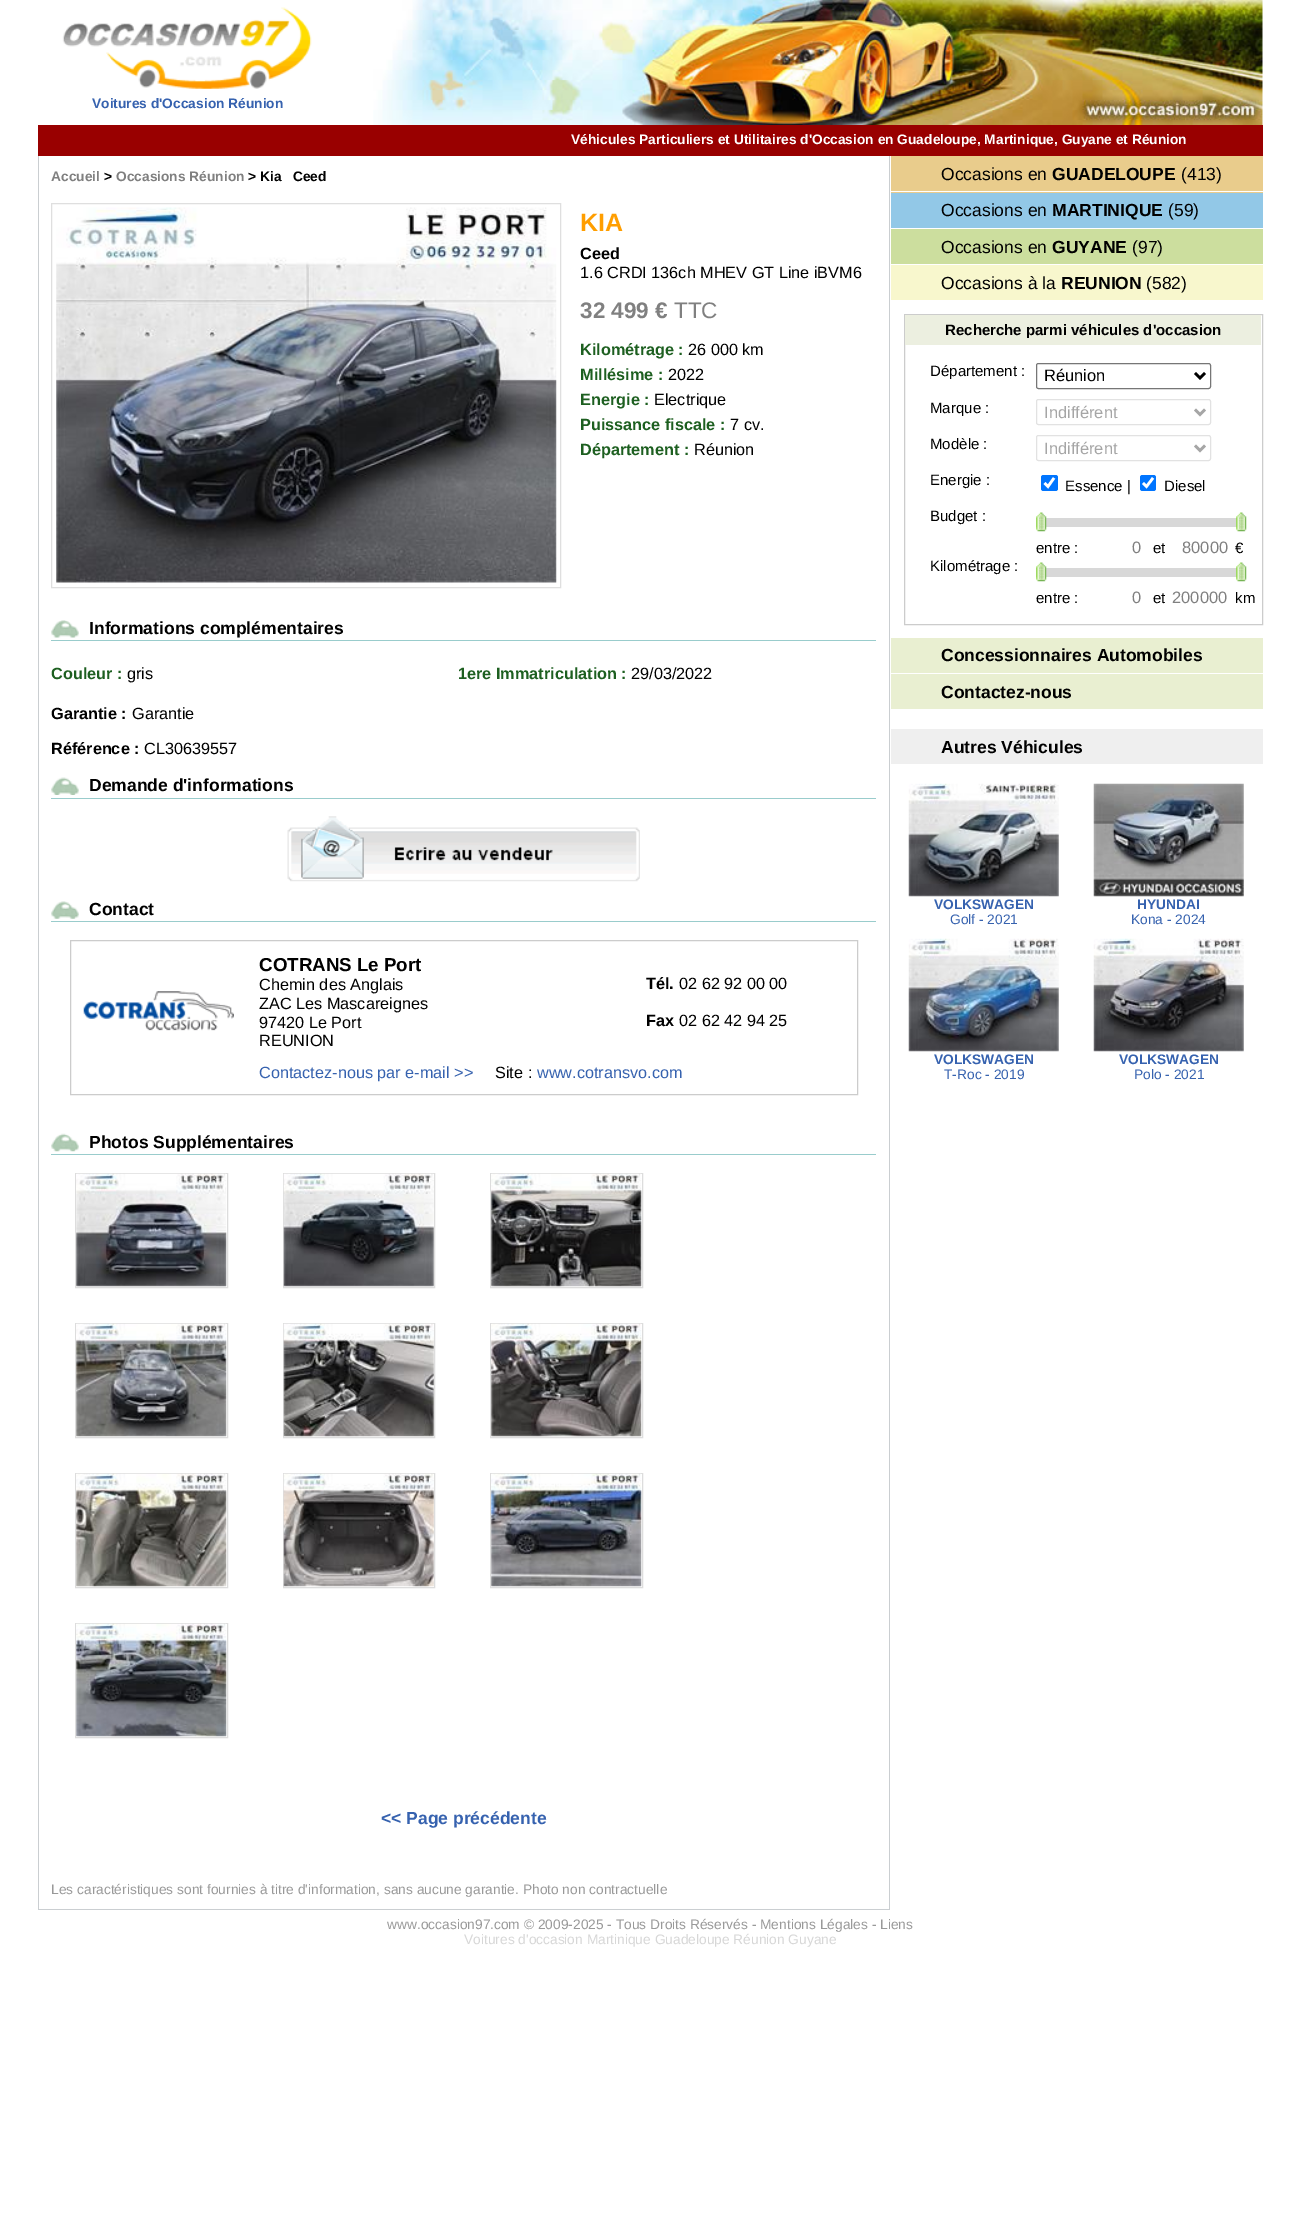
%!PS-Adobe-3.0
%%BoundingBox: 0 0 1299 2232
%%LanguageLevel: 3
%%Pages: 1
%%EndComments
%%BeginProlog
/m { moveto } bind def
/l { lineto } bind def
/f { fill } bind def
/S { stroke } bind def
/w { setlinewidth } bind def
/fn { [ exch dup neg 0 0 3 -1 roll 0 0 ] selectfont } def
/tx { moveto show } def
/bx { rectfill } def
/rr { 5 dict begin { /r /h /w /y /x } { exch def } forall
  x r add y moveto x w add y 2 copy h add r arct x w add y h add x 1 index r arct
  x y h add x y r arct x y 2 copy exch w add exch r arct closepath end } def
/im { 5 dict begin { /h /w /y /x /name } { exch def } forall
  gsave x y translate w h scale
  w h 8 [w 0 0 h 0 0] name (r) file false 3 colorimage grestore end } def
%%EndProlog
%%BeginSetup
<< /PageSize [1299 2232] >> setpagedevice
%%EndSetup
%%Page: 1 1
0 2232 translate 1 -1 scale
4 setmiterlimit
1 setgray
0 0 1299 2232 bx
(image0.raw) 62 7 250 82 im
/LiberationSans-Bold 13.75 fn
0.212 0.384 0.686 setrgbcolor
(Voitures d'Occasion Réunion) 92 108 tx
(image1.raw) 373 0 890 125 im
0.6 0 0 setrgbcolor
38 125 1225 31 bx
1 setgray
(Véhicules Particuliers et Utilitaires d'Occasion en Guadeloupe, Martinique, Guyane et Réunion) 571 144 tx
0.792 0.808 0.82 setrgbcolor
889 156 1 1754 bx
38 1909 852 1 bx
38 156 1 1754 bx
0.502 setgray
(Accueil) 51 181 tx
0 setgray
(>) 104 181 tx
0.502 setgray
(Occasions Réunion) 116 181 tx
0 setgray
(> Kia   Ceed) 248 181 tx
0.875 setgray
51.5 203.5 509 384 rectstroke
(image2.raw) 56 207 501 376 im
/LiberationSans-Bold 25 fn
1 0.62 0 setrgbcolor
(KIA) 580 231 tx
/LiberationSans-Bold 16.25 fn
0 setgray
(Ceed) 580 259 tx
/LiberationSans-Regular 16.25 fn
(1.6 CRDI 136ch MHEV GT Line iBVM6) 580 278 tx
/LiberationSans-Bold 22.5 fn
0.502 setgray
(32 499 €) 580 318 tx
/LiberationSans-Regular 22.5 fn
(TTC) 674 318 tx
/LiberationSans-Bold 16.25 fn
0.114 0.373 0.125 setrgbcolor
(Kilométrage :) 580 355 tx
/LiberationSans-Regular 16.25 fn
0 setgray
(26 000 km) 688 355 tx
/LiberationSans-Bold 16.25 fn
0.114 0.373 0.125 setrgbcolor
(Millésime :) 580 380 tx
/LiberationSans-Regular 16.25 fn
0 setgray
(2022) 668 380 tx
/LiberationSans-Bold 16.25 fn
0.114 0.373 0.125 setrgbcolor
(Energie :) 580 405 tx
/LiberationSans-Regular 16.25 fn
0 setgray
(Electrique) 654 405 tx
/LiberationSans-Bold 16.25 fn
0.114 0.373 0.125 setrgbcolor
(Puissance fiscale :) 580 430 tx
/LiberationSans-Regular 16.25 fn
0 setgray
(7 cv.) 730 430 tx
/LiberationSans-Bold 16.25 fn
0.114 0.373 0.125 setrgbcolor
(Département :) 580 455 tx
/LiberationSans-Regular 16.25 fn
0 setgray
(Réunion) 694 455 tx
(image3.raw) 51 620 28 18 im
0.6 0.8 0.8 setrgbcolor
51 640 825 1 bx
/LiberationSans-Bold 17.5 fn
0 setgray
(Informations complémentaires) 89 634 tx
/LiberationSans-Bold 16.25 fn
0.114 0.373 0.125 setrgbcolor
(Couleur :) 51 679 tx
/LiberationSans-Regular 16.25 fn
0 setgray
(gris) 127 679 tx
/LiberationSans-Bold 16.25 fn
0.114 0.373 0.125 setrgbcolor
(1ere Immatriculation :) 458 679 tx
/LiberationSans-Regular 16.25 fn
0 setgray
(29/03/2022) 631 679 tx
/LiberationSans-Bold 16.25 fn
(Garantie :) 51 719 tx
/LiberationSans-Regular 16.25 fn
(Garantie) 132 719 tx
/LiberationSans-Bold 16.25 fn
(Référence :) 51 754 tx
/LiberationSans-Regular 16.25 fn
(CL30639557) 144 754 tx
(image4.raw) 51 777 28 18 im
0.6 0.8 0.8 setrgbcolor
51 798 825 1 bx
/LiberationSans-Bold 17.5 fn
0 setgray
(Demande d'informations) 89 791 tx
(image5.raw) 287 816 353 66 im
(image6.raw) 51 901 28 18 im
0.6 0.8 0.8 setrgbcolor
51 921 825 1 bx
0 setgray
(Contact) 89 915 tx
0.8 setgray
70.5 940.5 787 154 rectstroke
(image7.raw) 83 991 151 40 im
/LiberationSans-Bold 18.75 fn
0 setgray
(COTRANS Le Port) 259 971 tx
/LiberationSans-Regular 16.25 fn
(Chemin des Anglais) 259 990 tx
(ZAC Les Mascareignes) 259 1009 tx
(97420 Le Port) 259 1028 tx
(REUNION) 259 1046 tx
/LiberationSans-Bold 16.25 fn
(Tél.) 646 989 tx
/LiberationSans-Regular 16.25 fn
(02 62 92 00 00) 679 989 tx
/LiberationSans-Bold 16.25 fn
(Fax) 646 1026 tx
/LiberationSans-Regular 16.25 fn
(02 62 42 94 25) 679 1026 tx
0.212 0.384 0.686 setrgbcolor
(Contactez-nous par e-mail >>) 259 1078 tx
0 setgray
(Site :) 495 1078 tx
0.212 0.384 0.686 setrgbcolor
(www.cotransvo.com) 537 1078 tx
(image8.raw) 51 1133 28 19 im
0.6 0.8 0.8 setrgbcolor
51 1154 825 1 bx
/LiberationSans-Bold 17.5 fn
0 setgray
(Photos Supplémentaires) 89 1148 tx
0.867 setgray
75.5 1173.5 152 114 rectstroke
(image9.raw) 76 1173 151 114 im
283.5 1173.5 151 114 rectstroke
(image10.raw) 283 1173 151 114 im
490.5 1173.5 152 114 rectstroke
(image11.raw) 491 1173 151 114 im
75.5 1323.5 152 114 rectstroke
(image12.raw) 76 1323 151 114 im
283.5 1323.5 151 114 rectstroke
(image13.raw) 283 1323 151 114 im
490.5 1323.5 152 114 rectstroke
(image14.raw) 491 1323 151 114 im
75.5 1473.5 152 114 rectstroke
(image15.raw) 76 1473 151 114 im
283.5 1473.5 151 114 rectstroke
(image16.raw) 283 1473 151 114 im
490.5 1473.5 152 114 rectstroke
(image17.raw) 491 1473 151 114 im
75.5 1623.5 152 114 rectstroke
(image18.raw) 76 1623 151 114 im
0.212 0.384 0.686 setrgbcolor
(<< Page précédente) 381 1824 tx
/LiberationSans-Regular 13.75 fn
0.6 setgray
(Les caractéristiques sont fournies à titre d'information, sans aucune garantie. Photo non contractuelle) 51 1894 tx
0.914 0.8 0.549 setrgbcolor
891 156 372 37 bx
1 setgray
891 191 372 1 bx
/LiberationSans-Regular 17.5 fn
0 setgray
(Occasions en) 941 180 tx
/LiberationSans-Bold 17.5 fn
(GUADELOUPE) 1052 180 tx
/LiberationSans-Regular 17.5 fn
(\(413\)) 1181 180 tx
0.573 0.784 0.906 setrgbcolor
891 193 372 35 bx
0 setgray
(Occasions en) 941 216 tx
/LiberationSans-Bold 17.5 fn
(MARTINIQUE) 1052 216 tx
/LiberationSans-Regular 17.5 fn
(\(59\)) 1168 216 tx
0.8 0.871 0.62 setrgbcolor
891 229 372 35 bx
0 setgray
(Occasions en) 941 253 tx
/LiberationSans-Bold 17.5 fn
(GUYANE) 1052 253 tx
/LiberationSans-Regular 17.5 fn
(\(97\)) 1132 253 tx
0.973 0.969 0.804 setrgbcolor
891 265 372 35 bx
0 setgray
(Occasions à la) 941 289 tx
/LiberationSans-Bold 17.5 fn
(REUNION) 1061 289 tx
/LiberationSans-Regular 17.5 fn
(\(582\)) 1146 289 tx
0.8 setgray
904.5 314.5 358 310 rectstroke
0.925 0.937 0.878 setrgbcolor
905 315 356 30 bx
/LiberationSans-Bold 15 fn
0 setgray
(Recherche parmi véhicules d'occasion) 945 335 tx
/LiberationSans-Regular 15 fn
(Département :) 930 376 tx
0.463 setgray
1036.5 363.5 174 25 2 rr S
0 setgray
2.5 w
1195 373 m 1200 378 l 1205 373 l S
/LiberationSans-Regular 16.5 fn
(Réunion) 1044 381 tx
/LiberationSans-Regular 15 fn
(Marque :) 930 413 tx
0.886 setgray
1 w
1036.5 399.5 174 25 2 rr S
0.651 setgray
2.5 w
1195 409.5 m 1200 414.5 l 1205 409.5 l S
/LiberationSans-Regular 16.5 fn
(Indifférent) 1044 418 tx
/LiberationSans-Regular 15 fn
0 setgray
(Modèle :) 930 449 tx
0.886 setgray
1 w
1036.5 435.5 174 25 2 rr S
0.651 setgray
2.5 w
1195 445.5 m 1200 450.5 l 1205 445.5 l S
/LiberationSans-Regular 16.5 fn
(Indifférent) 1044 454 tx
/LiberationSans-Regular 15 fn
0 setgray
(Energie :) 930 485 tx
0 0.459 1 setrgbcolor
1041 475 17 16 2.5 rr f
1 setgray
2.6 w
1044.5 483 m 1048 486.5 l 1054 478 l S
0 setgray
(Essence |) 1065 491 tx
0 0.459 1 setrgbcolor
1140 475 16 16 2.5 rr f
1 setgray
1143 483 m 1146.5 486.5 l 1153 478 l S
0 setgray
(Diesel) 1164 491 tx
(Budget :) 930 521 tx
0.847 setgray
1036 518 201 9 bx
(image19.raw) 1036 512 11 20 im
(image20.raw) 1236 512 11 20 im
0 setgray
(entre :) 1036 553 tx
/LiberationSans-Regular 16.5 fn
0.502 setgray
(0) 1132 553 tx
/LiberationSans-Regular 15 fn
0 setgray
(et) 1153 553 tx
/LiberationSans-Regular 16.5 fn
0.502 setgray
(80000) 1182 553 tx
/LiberationSans-Regular 15 fn
0 setgray
(€) 1235 553 tx
(Kilométrage :) 930 571 tx
0.847 setgray
1036 568 201 9 bx
(image21.raw) 1036 562 11 20 im
(image22.raw) 1236 562 11 20 im
0 setgray
(entre :) 1036 603 tx
/LiberationSans-Regular 16.5 fn
0.502 setgray
(0) 1132 603 tx
/LiberationSans-Regular 15 fn
0 setgray
(et) 1153 603 tx
/LiberationSans-Regular 16.5 fn
0.502 setgray
(200000) 1172 603 tx
/LiberationSans-Regular 15 fn
0 setgray
(km) 1235 603 tx
0.914 0.937 0.82 setrgbcolor
891 638 372 35 bx
/LiberationSans-Bold 17.5 fn
0 setgray
(Concessionnaires Automobiles) 941 661 tx
0.914 0.937 0.82 setrgbcolor
891 674 372 35 bx
0 setgray
(Contactez-nous) 941 698 tx
0.937 setgray
891 729 372 35 bx
0 setgray
(Autres Véhicules) 941 753 tx
(image23.raw) 908 783 151 114 im
/LiberationSans-Bold 13.75 fn
0.212 0.384 0.686 setrgbcolor
(VOLKSWAGEN) 934 909 tx
/LiberationSans-Regular 13.75 fn
(Golf - 2021) 950 924 tx
(image24.raw) 1093 783 151 114 im
/LiberationSans-Bold 13.75 fn
(HYUNDAI) 1137 909 tx
/LiberationSans-Regular 13.75 fn
(Kona - 2024) 1131 924 tx
(image25.raw) 908 938 151 114 im
/LiberationSans-Bold 13.75 fn
(VOLKSWAGEN) 934 1064 tx
/LiberationSans-Regular 13.75 fn
(T-Roc - 2019) 944 1079 tx
(image26.raw) 1093 938 151 114 im
/LiberationSans-Bold 13.75 fn
(VOLKSWAGEN) 1119 1064 tx
/LiberationSans-Regular 13.75 fn
(Polo - 2021) 1134 1079 tx
0.6 setgray
(www.occasion97.com © 2009-2025 - Tous Droits Réservés - Mentions Légales - Liens) 387 1929 tx
0.843 setgray
(Voitures d'occasion Martinique Guadeloupe Réunion Guyane) 464 1944 tx
showpage
%%EOF
